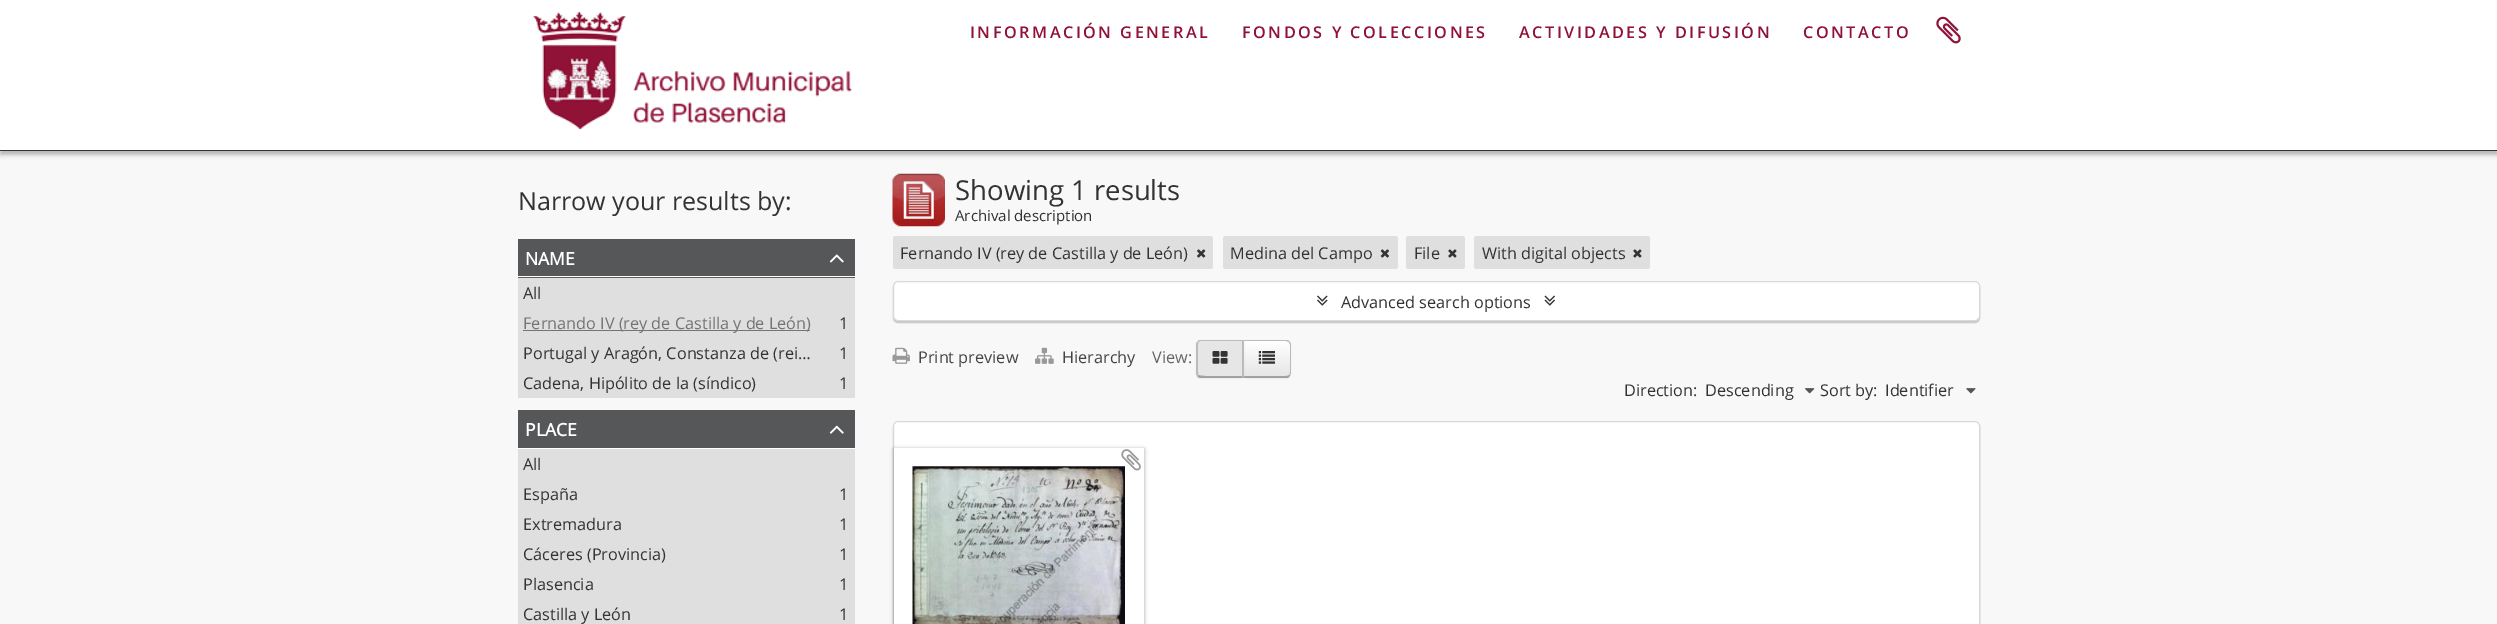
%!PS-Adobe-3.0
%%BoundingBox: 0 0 2497 624
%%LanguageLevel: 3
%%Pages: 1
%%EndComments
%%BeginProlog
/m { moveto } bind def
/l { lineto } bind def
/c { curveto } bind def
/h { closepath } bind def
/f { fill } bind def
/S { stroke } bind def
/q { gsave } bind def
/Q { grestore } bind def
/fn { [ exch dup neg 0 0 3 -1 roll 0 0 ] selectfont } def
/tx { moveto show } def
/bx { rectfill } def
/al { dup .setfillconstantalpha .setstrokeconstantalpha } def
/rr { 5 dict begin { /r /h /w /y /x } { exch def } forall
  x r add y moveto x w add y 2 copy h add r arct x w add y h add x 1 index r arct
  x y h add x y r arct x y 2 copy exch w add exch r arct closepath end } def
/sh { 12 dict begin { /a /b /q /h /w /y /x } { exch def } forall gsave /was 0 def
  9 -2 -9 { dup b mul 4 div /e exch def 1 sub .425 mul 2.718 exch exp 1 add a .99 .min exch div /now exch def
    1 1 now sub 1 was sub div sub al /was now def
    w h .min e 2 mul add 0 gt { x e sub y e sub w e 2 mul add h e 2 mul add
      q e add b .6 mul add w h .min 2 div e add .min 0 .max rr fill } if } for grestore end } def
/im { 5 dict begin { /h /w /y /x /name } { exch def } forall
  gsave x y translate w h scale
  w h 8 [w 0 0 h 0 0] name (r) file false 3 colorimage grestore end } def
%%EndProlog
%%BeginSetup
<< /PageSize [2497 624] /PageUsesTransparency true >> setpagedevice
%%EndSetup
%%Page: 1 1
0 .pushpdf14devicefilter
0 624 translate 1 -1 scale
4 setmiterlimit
0.973 setgray
0 0 2497 624 bx
0 setgray
0 4 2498 151 0 2 0.25 sh
1 setgray
0 0 2497 150 bx
0.2 setgray
0 150 2497 1 bx
(image0.raw) 532 11 320 119 im
/OpenSans-SemiBold 16.25 fn
0.565 0.071 0.216 setrgbcolor
970 38 m 2.5 0 (INFORMACIÓN GENERAL) ashow
1242 38 m 2.5 0 (FONDOS Y COLECCIONES) ashow
1519 38 m 2.5 0 (ACTIVIDADES Y DIFUSIÓN) ashow
1803 38 m 2.5 0 (CONTACTO) ashow
(image1.raw) 1936 16 25 28 im
/OpenSans-Regular 25 fn
0.2 setgray
(Narrow your results by:) 518 210 tx
q 518 277 m 855 277 l 855 278 l 518 278 l h clip newpath
<< /ShadingType 2 /ColorSpace /DeviceRGB /Coords [686 276 686 314] /Extend [true true] /Function << /FunctionType 2 /Domain [0 1] /C0 [0.353 0.353 0.353] /C1 [0.478 0.478 0.478] /N 1 >> >> shfill Q
1 setgray
518 276 337 1 bx
0.333 0.341 0.349 setrgbcolor
518 239 337 37 bx
/OpenSans-Bold 17.5 fn
1 setgray
(NAME) 525 265 tx
(image2.raw) 829 254 15 9 im
0.875 setgray
518 278 337 120 bx
/OpenSans-Regular 16.25 fn
0.2 setgray
(All) 523 299 tx
0.451 0.455 0.459 setrgbcolor
523 330 287 1 bx
(Fernando IV \(rey de Castilla y de León\)) 523 329 tx
0.2 setgray
(1) 839 329 tx
(Portugal y Aragón, Constanza de \(rei…) 523 359 tx
(1) 839 359 tx
(Cadena, Hipólito de la \(síndico\)) 523 389 tx
(1) 839 389 tx
1 setgray
518 448 337 1 bx
0.333 0.341 0.349 setrgbcolor
518 410 337 38 bx
/OpenSans-Bold 17.5 fn
1 setgray
(PLACE) 525 436 tx
(image3.raw) 829 425 15 9 im
0.875 setgray
518 449 337 175 bx
/OpenSans-Regular 16.25 fn
0.2 setgray
(All) 523 470 tx
(España) 523 500 tx
(1) 839 500 tx
(Extremadura) 523 530 tx
(1) 839 530 tx
(Cáceres \(Provincia\)) 523 560 tx
(1) 839 560 tx
(Plasencia) 523 590 tx
(1) 839 590 tx
(Castilla y León) 523 620 tx
(1) 839 620 tx
(image4.raw) 892 173 53 54 im
/OpenSans-Regular 27.5 fn
(Showing 1 results) 955 200 tx
/OpenSans-Regular 15 fn
(Archival description) 955 221 tx
0.875 setgray
893 236 320 33 2.5 rr f
/OpenSans-Regular 16.25 fn
0.2 setgray
(Fernando IV \(rey de Castilla y de León\)) 900 259 tx
(image5.raw) 1197 249 9 9 im
0.875 setgray
1223 236 175 33 2.5 rr f
0.2 setgray
(Medina del Campo) 1230 259 tx
(image6.raw) 1380 249 9 9 im
0.875 setgray
1406 236 59 33 2.5 rr f
0.2 setgray
(File) 1414 259 tx
(image7.raw) 1448 249 9 9 im
0.875 setgray
1474 236 176 33 2.5 rr f
0.2 setgray
(With digital objects) 1482 259 tx
(image7.raw) 1633 249 9 9 im
0 setgray
893 283 1087 40 5 0.5 0.2 sh
1 setgray
893.5 281.5 1086 39 4.5 rr q f Q
0.851 setgray
S
(image8.raw) 1317 295 11 11 im
0.2 setgray
(Advanced search options) 1341 308 tx
(image9.raw) 1544 295 11 11 im
(image10.raw) 892 347 18 17 im
0.267 setgray
(Print preview) 918 363 tx
(image11.raw) 1035 347 19 17 im
(Hierarchy) 1062 363 tx
0.4 setgray
(View:) 1152 363 tx
0 setgray
1243 341 48 38 5 1 0.05 sh
q
1243 340 m 1286 340 l 1289 340 1291 342 1291 345 c 1291 373 l 1291 376 1289 378 1286 378 c 1243 378 l h clip newpath
q 1244 341 m 1291 341 l 1291 376 l 1244 376 l h clip newpath
<< /ShadingType 2 /ColorSpace /DeviceRGB /Coords [1267 341 1267 376] /Extend [true true] /Function << /FunctionType 2 /Domain [0 1] /C0 [1 1 1] /C1 [0.902 0.902 0.902] /N 1 >> >> shfill Q
Q
0.733 setgray
1244 341 m 1286 341 l 1287 341 1288 342 1289 342 c 1290 342 l 1289 341 1288 340 1286 340 c 1242 340 l 1244 342 l h f
1289.5 341.5 m 1290.5 342.5 1291 343.5 1291 345 c 1291 372 l 1291 373.5 1290.5 375 1289.5 376 c 1289 375 l 1289.5 374.5 1290 373.5 1290 372 c 1290 345 l 1290 344 1289.5 343 1289 342.5 c h f
0.635 setgray
1290 376 m 1288 378 l 1242 378 l 1244 376 l 1286 376 l 1287 376 1288 376 1289 375 c h f
0 setgray
1196 341 48 38 5 1 0.05 sh
0.902 setgray
1201 340 m 1244 340 l 1244 378 l 1201 378 l 1198 378 1196 376 1196 373 c 1196 345 l 1196 342 1198 340 1201 340 c h f
0.733 setgray
1201 340 m 1200 340 1198 340 1198 341 c 1199 342 l 1200 341 l 1242 341 l 1242 342 l 1244 340 l h f
1244 340 m 1242 342 l 1242 376 l 1244 377.5 l h f
0.635 setgray
1244 378 m 1199 378 l 1197 376 l 1199 375 l 1200 377 1237 376 1242 376 c h f
0.733 setgray
1196 343.5 m 1197.5 341.5 l 1198.5 342.5 l 1198 343 1198 344 1198 345 c 1198 372 l 1198 373.5 1198 374.5 1198.5 375 c 1197.5 376.5 l 1196 374 l h f
(image12.raw) 1212 351 16 13 im
(image13.raw) 1258 351 17 13 im
0.2 setgray
(Direction:) 1624 396 tx
(Descending) 1705 396 tx
(image14.raw) 1805 388 10 6 im
(Sort by:) 1820 396 tx
(Identifier) 1885 396 tx
(image15.raw) 1966 388 10 6 im
0 setgray
893 423 1087 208 5 0.5 0.2 sh
1 setgray
893.5 421.5 1086 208 4.5 rr q f Q
0.851 setgray
S
0.098 setgray
894 449 250 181 0 2 0.4 sh
1 setgray
894 448 250 176 bx
(image17.raw) 912 466 213 158 im
(image16.raw) 1121 449 20 22 im
.poppdf14devicefilter showpage
%%EOF
